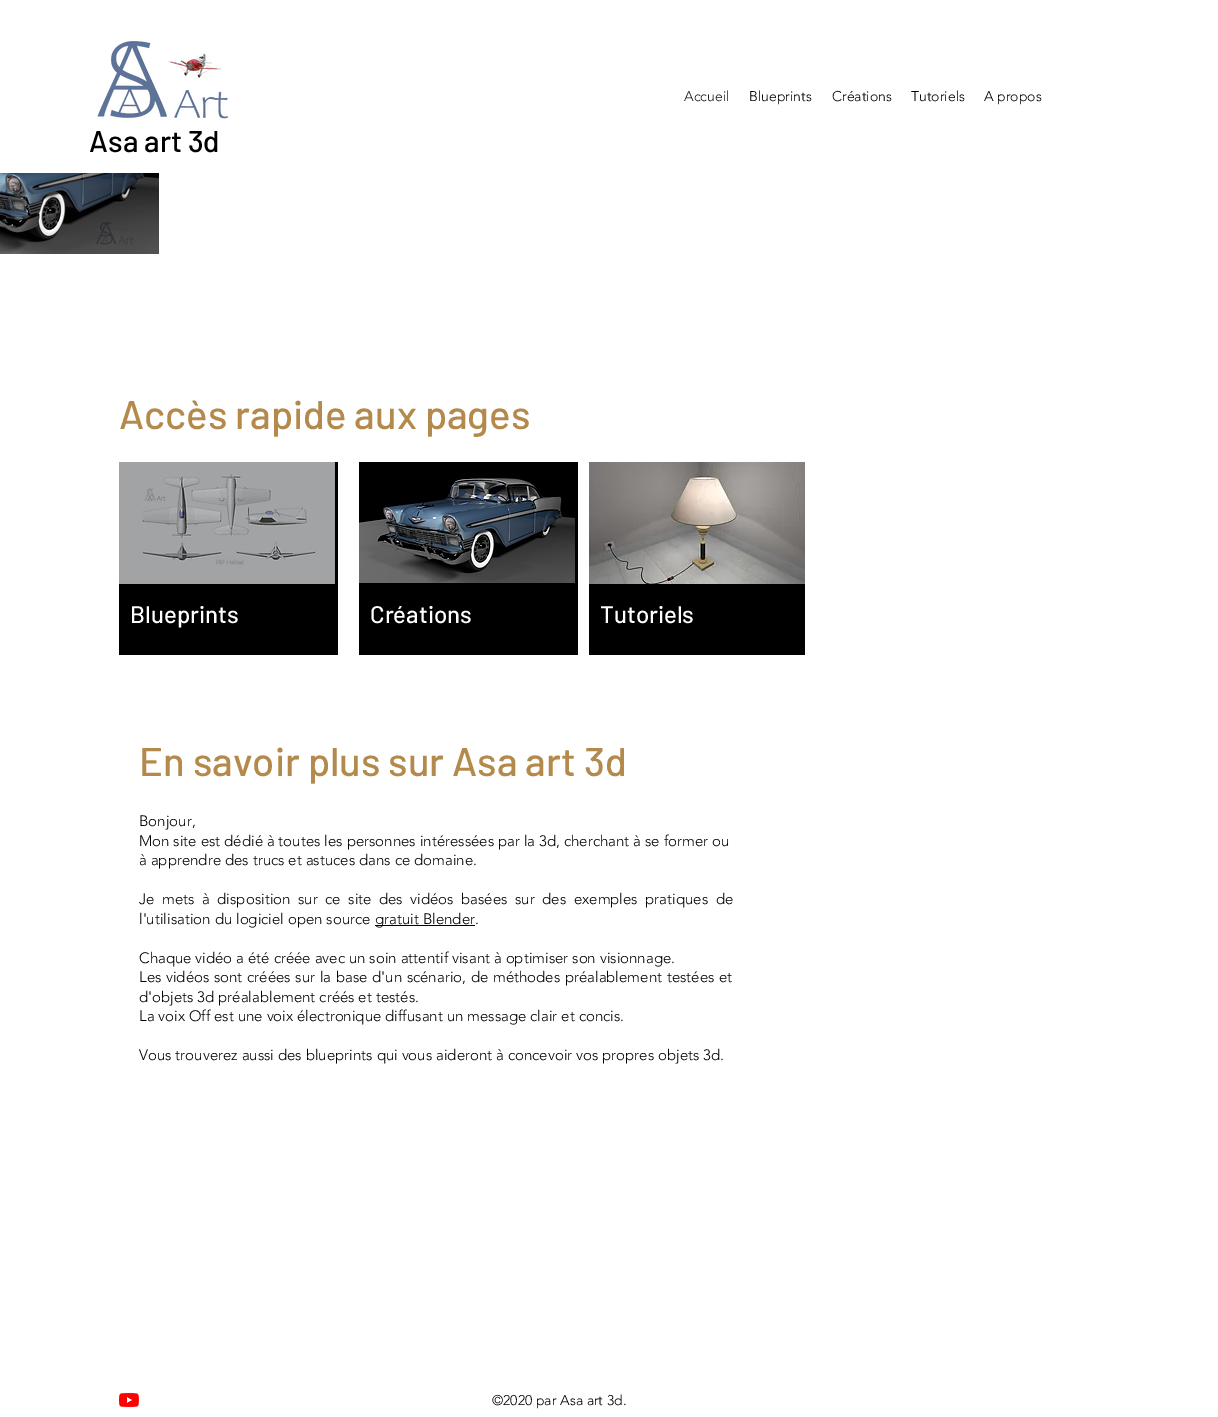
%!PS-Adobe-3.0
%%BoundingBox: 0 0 1218 1417
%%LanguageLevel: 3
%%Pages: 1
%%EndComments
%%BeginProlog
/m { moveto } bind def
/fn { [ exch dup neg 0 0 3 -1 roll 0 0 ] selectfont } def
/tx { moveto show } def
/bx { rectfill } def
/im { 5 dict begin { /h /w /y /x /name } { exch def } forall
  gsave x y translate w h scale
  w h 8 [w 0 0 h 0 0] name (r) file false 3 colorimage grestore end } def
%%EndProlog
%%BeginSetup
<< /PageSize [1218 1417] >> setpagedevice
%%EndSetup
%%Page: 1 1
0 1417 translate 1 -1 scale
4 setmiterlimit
1 setgray
0 0 1218 1417 bx
/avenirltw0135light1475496-Light 14 fn
0.098 setgray
(Accueil) 684 101 tx
0 setgray
(Blueprints) 749 101 tx
(Créations) 832 101 tx
(Tutoriels) 911 101 tx
(A propos) 984 101 tx
(image0.raw) 97 41 131 78 im
/Barlow-Medium 30 fn
(Asa art 3d) 89 152 tx
(image1.raw) 0 173 159 81 im
/Barlow-Medium 40 fn
0.702 0.541 0.298 setrgbcolor
(Accès rapide aux pages) 119 429 tx
0 setgray
119 462 219 193 bx
(image2.raw) 119 462 216 122 im
/Barlow-Medium 24 fn
1 setgray
(Blueprints) 130 623 tx
0 setgray
359 462 219 193 bx
(image3.raw) 359 478 216 105 im
1 setgray
(Créations) 370 623 tx
0 setgray
589 584 216 71 bx
(image4.raw) 589 462 216 122 im
1 setgray
(Tutoriels) 600 623 tx
/Barlow-Medium 40 fn
0.702 0.541 0.298 setrgbcolor
(En savoir plus sur Asa art 3d) 139 776 tx
/avenirltw0135light1475496-Light 15 fn
0 setgray
(Bonjour,) 139 826 tx
(Mon site est dédié à toutes les personnes intéressées par la 3d, cherchant à se former ou) 139 846 tx
(à apprendre des trucs et astuces dans ce domaine.) 139 865 tx
139 904 m 3.6 0 32 (Je mets à disposition sur ce site des vidéos basées sur des exemples pratiques de) widthshow
(l'utilisation du logiciel open source) 139 924 tx
375 925 100 1 bx
(gratuit Blender.) 375 924 tx
(Chaque vidéo a été créée avec un soin attentif visant à optimiser son visionnage.) 139 963 tx
139 982 m 0.75 0 32 (Les vidéos sont créées sur la base d'un scénario, de méthodes préalablement testées et) widthshow
(d'objets 3d préalablement créés et testés.) 139 1002 tx
(La voix Off est une voix électronique diffusant un message clair et concis.) 139 1021 tx
(Vous trouverez aussi des blueprints qui vous aideront à concevoir vos propres objets 3d.) 139 1060 tx
(image5.raw) 119 1392 20 16 im
/avenirltw0135light1475496-Light 14 fn
(©2020 par Asa art 3d.) 492 1405 tx
showpage
%%EOF
